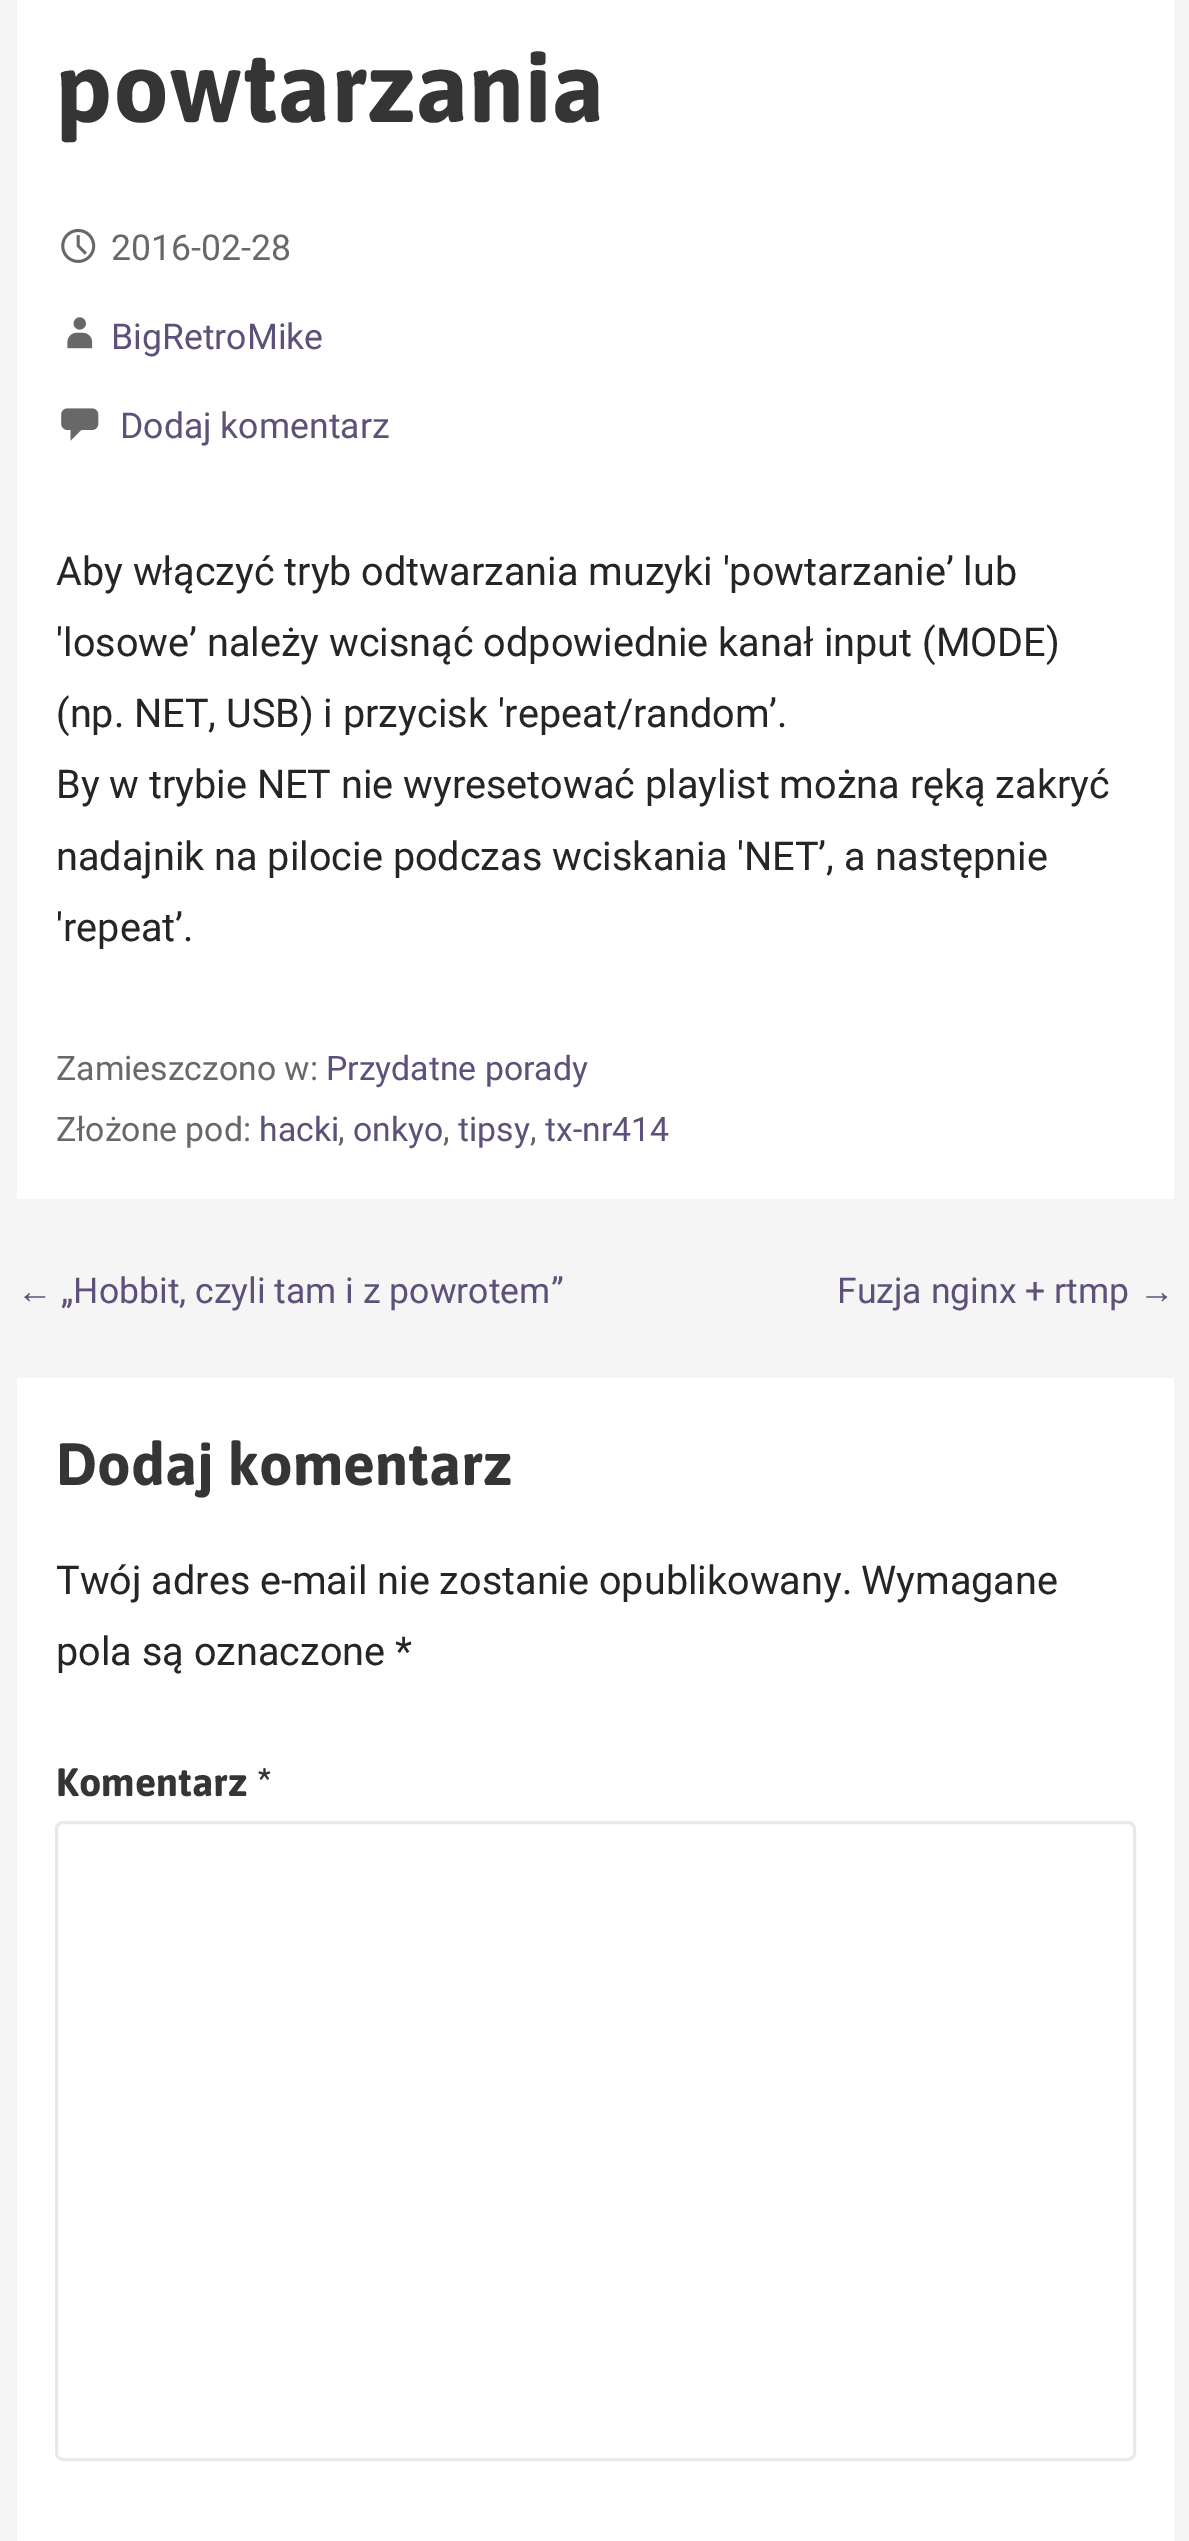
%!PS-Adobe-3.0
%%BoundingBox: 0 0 1189 2541
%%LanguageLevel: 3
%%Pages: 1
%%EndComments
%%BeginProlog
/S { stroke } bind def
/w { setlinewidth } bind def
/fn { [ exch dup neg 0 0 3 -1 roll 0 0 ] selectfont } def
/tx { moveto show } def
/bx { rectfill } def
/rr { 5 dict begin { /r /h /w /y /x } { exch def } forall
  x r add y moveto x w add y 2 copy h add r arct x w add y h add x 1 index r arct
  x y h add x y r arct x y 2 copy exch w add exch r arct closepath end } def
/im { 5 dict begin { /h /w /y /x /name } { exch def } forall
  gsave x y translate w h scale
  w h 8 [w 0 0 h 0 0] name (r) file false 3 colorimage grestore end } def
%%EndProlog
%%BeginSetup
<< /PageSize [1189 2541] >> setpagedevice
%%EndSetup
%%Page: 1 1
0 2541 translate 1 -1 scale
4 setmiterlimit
0.961 setgray
0 0 1189 2541 bx
1 setgray
17 0 1157 1199 bx
/Asap-Bold 99 fn
0.208 setgray
(powtarzania) 56 122 tx
(image0.raw) 61 228 35 35 im
/Roboto-Regular 35.6 fn
0.408 setgray
(2016-02-28) 111 260 tx
(image1.raw) 67 317 26 32 im
0.365 0.318 0.475 setrgbcolor
(BigRetroMike) 111 349 tx
(image2.raw) 61 408 38 33 im
(Dodaj komentarz) 120 438 tx
/Roboto-Regular 39.6 fn
0.145 setgray
(Aby włączyć tryb odtwarzania muzyki 'powtarzanie’ lub) 56 585 tx
('losowe’ należy wcisnąć odpowiednie kanał input \(MODE\)) 56 656 tx
(\(np. NET, USB\) i przycisk 'repeat/random’.) 56 727 tx
(By w trybie NET nie wyresetować playlist można ręką zakryć) 56 798 tx
(nadajnik na pilocie podczas wciskania 'NET’, a następnie) 56 870 tx
('repeat’.) 56 941 tx
/Roboto-Regular 33.75 fn
0.408 setgray
(Zamieszczono w:) 56 1080 tx
0.365 0.318 0.475 setrgbcolor
(Przydatne porady) 326 1080 tx
0.408 setgray
(Złożone pod:) 56 1141 tx
0.365 0.318 0.475 setrgbcolor
(hacki) 259 1141 tx
0.408 setgray
(,) 338 1141 tx
0.365 0.318 0.475 setrgbcolor
(onkyo) 353 1141 tx
0.408 setgray
(,) 443 1141 tx
0.365 0.318 0.475 setrgbcolor
(tipsy) 458 1141 tx
0.408 setgray
(,) 530 1141 tx
0.365 0.318 0.475 setrgbcolor
(tx-nr414) 545 1141 tx
/LiberationSans-Regular 35.6 fn
(←) 17 1303 tx
/Roboto-Regular 35.6 fn
(„Hobbit, czyli tam i z powrotem”) 61 1303 tx
(Fuzja nginx + rtmp) 837 1303 tx
/LiberationSans-Regular 35.6 fn
(→) 1139 1303 tx
1 setgray
17 1378 1157 1163 bx
/Asap-Bold 59.5 fn
0.208 setgray
(Dodaj komentarz) 56 1485 tx
/Roboto-Regular 39.6 fn
0.145 setgray
(Twój adres e-mail nie zostanie opublikowany.) 56 1594 tx
(Wymagane) 861 1594 tx
(pola są oznaczone *) 56 1665 tx
/Asap-Bold 39.6 fn
0.208 setgray
(Komentarz *) 56 1796 tx
0.914 setgray
3 w
56.5 1822.5 1078 637 6.5 rr S
showpage
%%EOF
